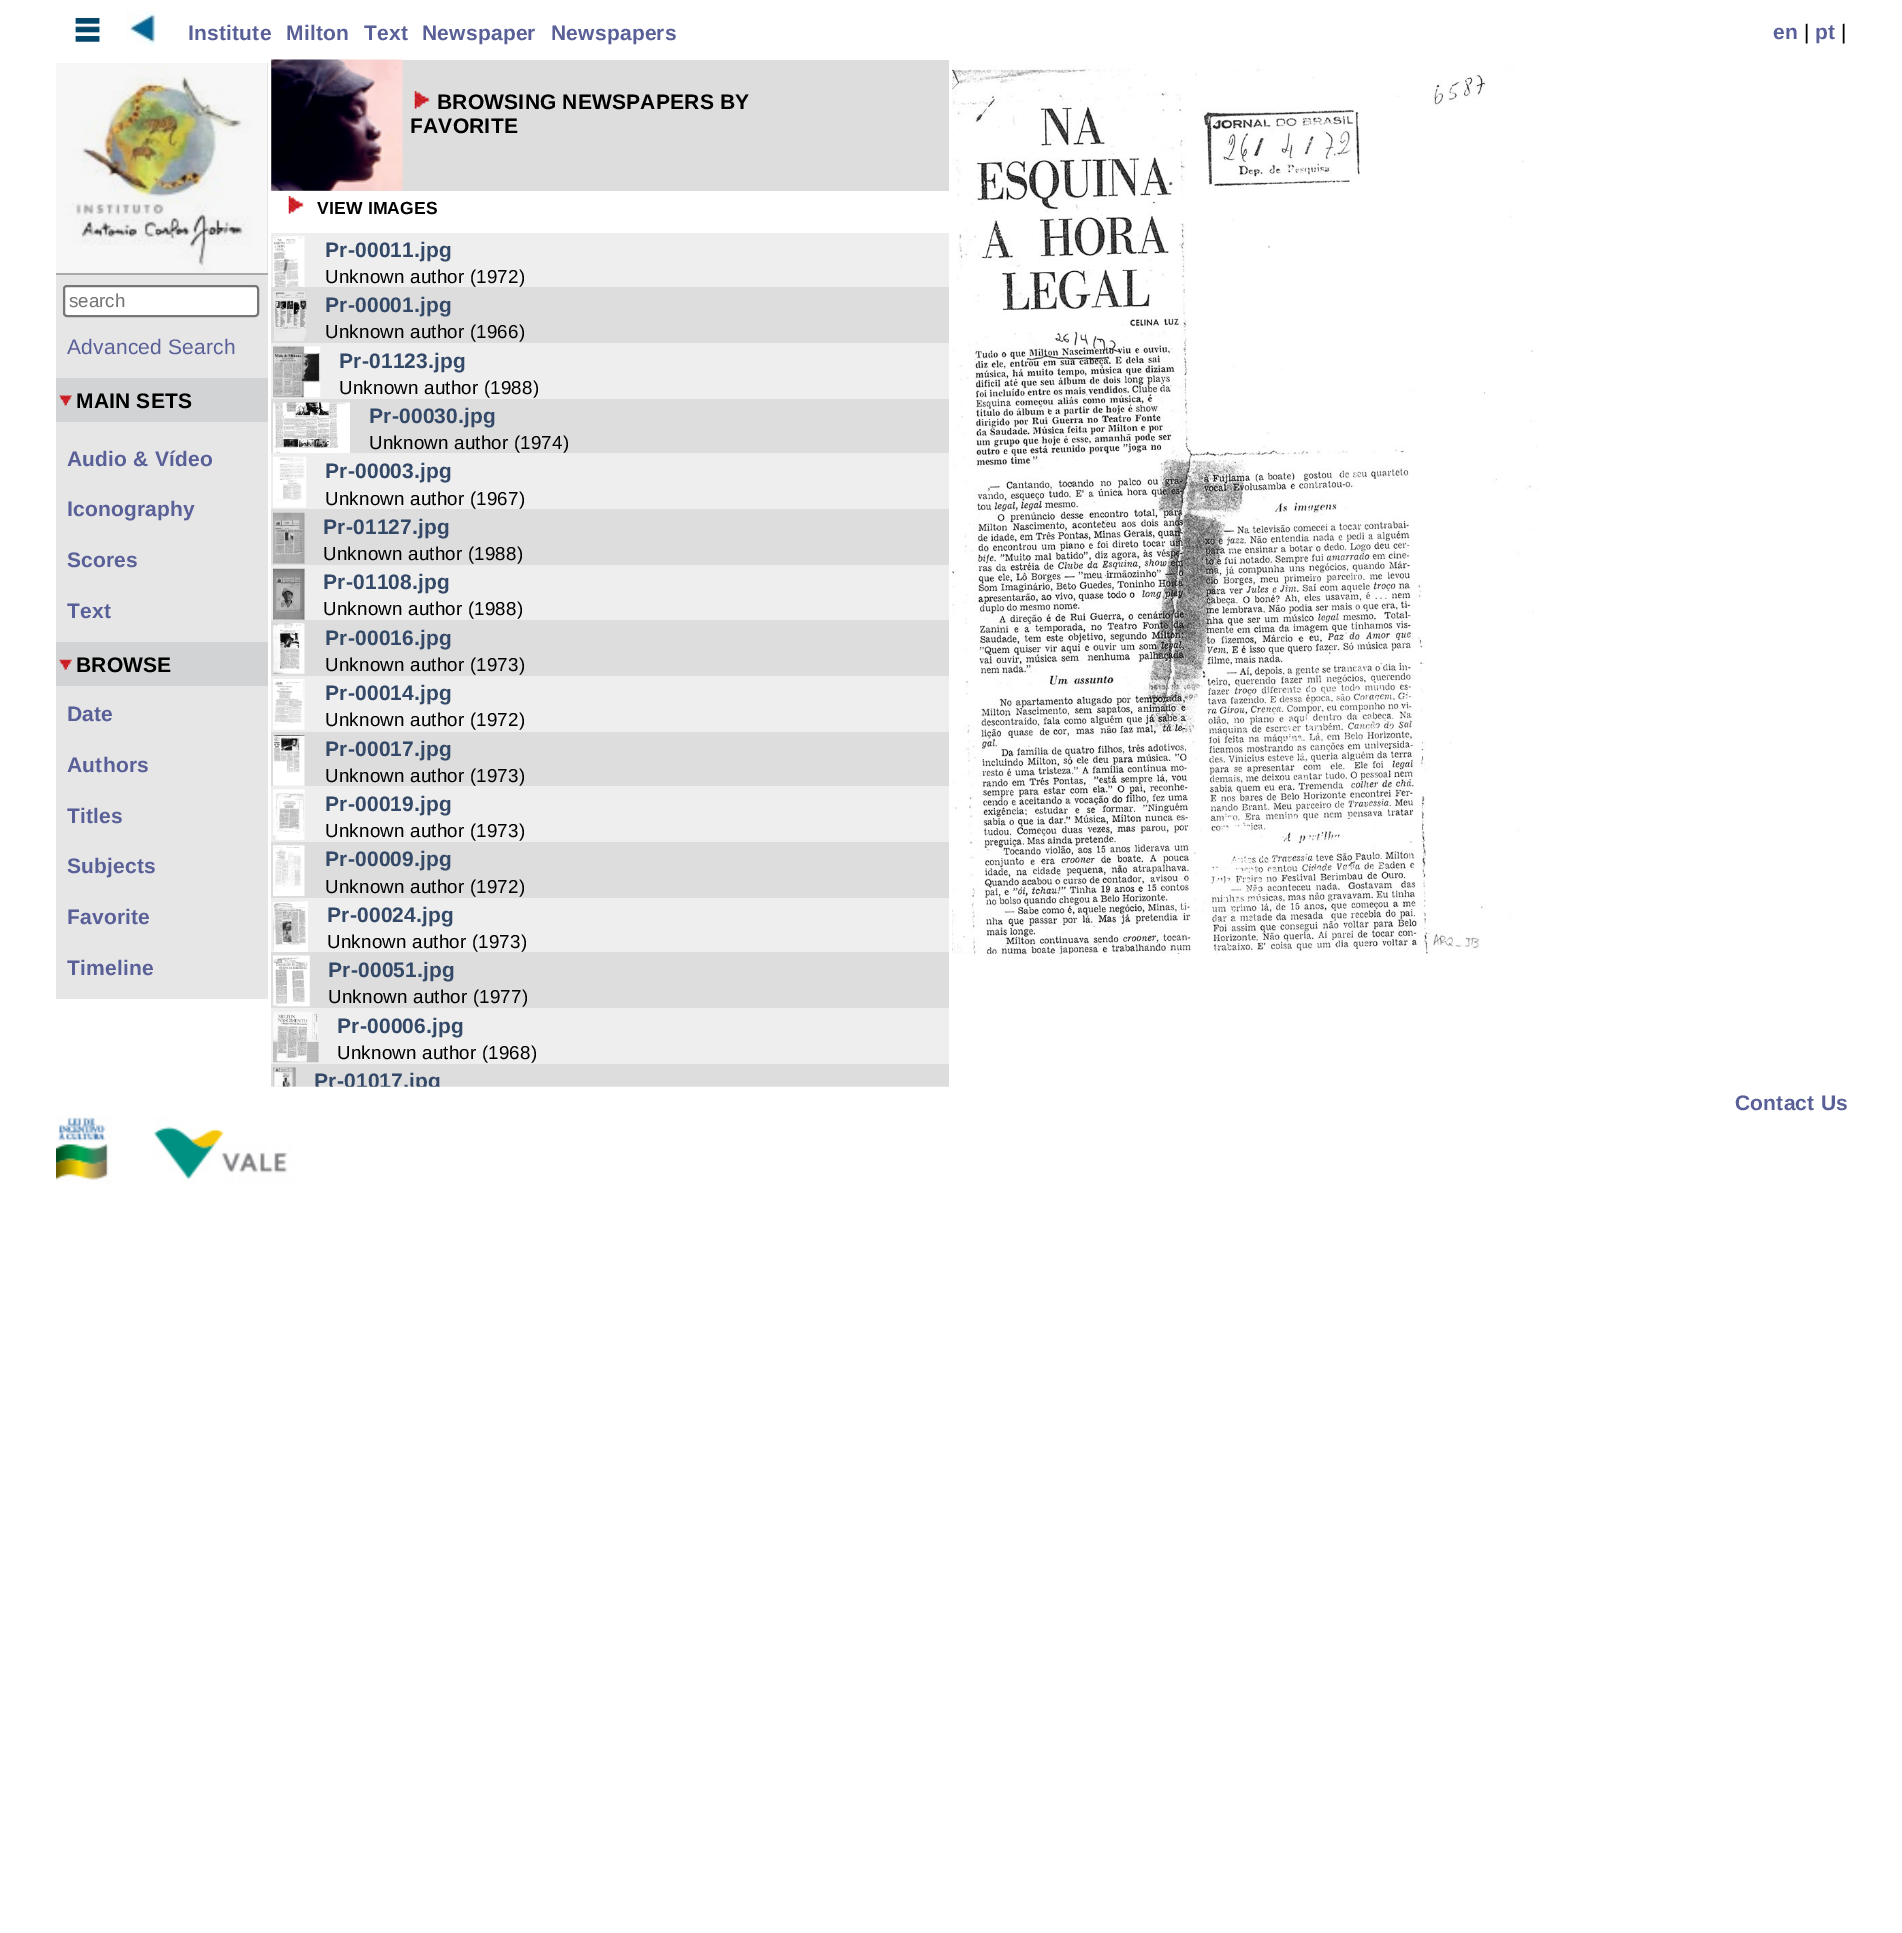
%!PS-Adobe-3.0
%%BoundingBox: 0 0 1902 1933
%%LanguageLevel: 3
%%Pages: 1
%%EndComments
%%BeginProlog
/m { moveto } bind def
/f { fill } bind def
/S { stroke } bind def
/q { gsave } bind def
/Q { grestore } bind def
/w { setlinewidth } bind def
/fn { [ exch dup neg 0 0 3 -1 roll 0 0 ] selectfont } def
/tx { moveto show } def
/bx { rectfill } def
/rr { 5 dict begin { /r /h /w /y /x } { exch def } forall
  x r add y moveto x w add y 2 copy h add r arct x w add y h add x 1 index r arct
  x y h add x y r arct x y 2 copy exch w add exch r arct closepath end } def
/im { 5 dict begin { /h /w /y /x /name } { exch def } forall
  gsave x y translate w h scale
  w h 8 [w 0 0 h 0 0] name (r) file false 3 colorimage grestore end } def
%%EndProlog
%%BeginSetup
<< /PageSize [1902 1933] >> setpagedevice
%%EndSetup
%%Page: 1 1
0 1933 translate 1 -1 scale
4 setmiterlimit
1 setgray
0 0 1902 1933 bx
(image0.raw) 75 17 25 25 im
(image1.raw) 126 10 30 36 im
/LiberationSans-Bold 21 fn
0.349 0.373 0.592 setrgbcolor
188 40 m 0.2 0 (Institute) ashow
286 40 m 0.2 0 (Milton) ashow
364 40 m 0.2 0 (Text) ashow
422 40 m 0.2 0 (Newspaper) ashow
551 40 m 0.2 0 (Newspapers) ashow
1773 39 m 0.2 0 (en) ashow
/LiberationSans-Regular 21 fn
0 setgray
1804 39 m 0.2 0 (|) ashow
/LiberationSans-Bold 21 fn
0.349 0.373 0.592 setrgbcolor
1815 39 m 0.2 0 (pt) ashow
/LiberationSans-Regular 21 fn
0 setgray
1841 39 m 0.2 0 (|) ashow
0.902 setgray
56 275 212 724 bx
0.667 setgray
56 63 212 212 bx
(image2.raw) 56 63 212 210 im
1 setgray
64 286 194 30 3 rr q f Q
0.463 setgray
2 w
S
/LiberationSans-Regular 18.75 fn
0.459 setgray
(search) 69 307 tx
/LiberationSans-Regular 21 fn
0.349 0.373 0.592 setrgbcolor
67 354 m 0.2 0 (Advanced Search) ashow
0.82 0.827 0.831 setrgbcolor
56 378 212 44 bx
(image3.raw) 59 395 13 11 im
/LiberationSans-Bold 21 fn
0 setgray
76 408 m 0.2 0 (MAIN SETS) ashow
0.349 0.373 0.592 setrgbcolor
67 466 m 0.2 0 (Audio & Vídeo) ashow
67 516 m 0.2 0 (Iconography) ashow
67 567 m 0.2 0 (Scores) ashow
67 618 m 0.2 0 (Text) ashow
0.82 0.827 0.831 setrgbcolor
56 642 212 44 bx
(image4.raw) 59 659 13 11 im
0 setgray
76 672 m 0.2 0 (BROWSE) ashow
0.349 0.373 0.592 setrgbcolor
67 721 m 0.2 0 (Date) ashow
67 772 m 0.2 0 (Authors) ashow
67 823 m 0.2 0 (Titles) ashow
67 873 m 0.2 0 (Subjects) ashow
67 924 m 0.2 0 (Favorite) ashow
67 975 m 0.2 0 (Timeline) ashow
0.867 setgray
271 60 678 131 bx
(image5.raw) 271 59 132 132 im
(image6.raw) 952 65 586 889 im
(image7.raw) 414 91 16 18 im
0 setgray
437 109 m 0.2 0 (BROWSING NEWSPAPERS BY) ashow
410 133 m 0.2 0 (FAVORITE) ashow
(image8.raw) 288 196 16 18 im
/LiberationSans-Bold 17.5 fn
317 214 m 0.2 0 (VIEW IMAGES) ashow
0.933 setgray
271 233 678 54 bx
(image9.raw) 273 236 32 51 im
/LiberationSans-Bold 21 fn
0.204 0.286 0.404 setrgbcolor
325 257 m 0.2 0 (Pr-00011.jpg) ashow
/LiberationSans-Regular 18.75 fn
0 setgray
325 283 m 0.2 0 (Unknown author \(1972\)) ashow
0.867 setgray
271 287 678 56 bx
(image10.raw) 273 290 34 51 im
/LiberationSans-Bold 21 fn
0.204 0.286 0.404 setrgbcolor
325 312 m 0.2 0 (Pr-00001.jpg) ashow
/LiberationSans-Regular 18.75 fn
0 setgray
325 338 m 0.2 0 (Unknown author \(1966\)) ashow
0.933 setgray
271 343 678 56 bx
(image11.raw) 273 346 48 52 im
/LiberationSans-Bold 21 fn
0.204 0.286 0.404 setrgbcolor
339 368 m 0.2 0 (Pr-01123.jpg) ashow
/LiberationSans-Regular 18.75 fn
0 setgray
339 394 m 0.2 0 (Unknown author \(1988\)) ashow
0.867 setgray
271 399 678 54 bx
(image12.raw) 273 402 77 51 im
/LiberationSans-Bold 21 fn
0.204 0.286 0.404 setrgbcolor
369 423 m 0.2 0 (Pr-00030.jpg) ashow
/LiberationSans-Regular 18.75 fn
0 setgray
369 449 m 0.2 0 (Unknown author \(1974\)) ashow
0.933 setgray
271 453 678 56 bx
(image13.raw) 273 456 34 52 im
/LiberationSans-Bold 21 fn
0.204 0.286 0.404 setrgbcolor
325 478 m 0.2 0 (Pr-00003.jpg) ashow
/LiberationSans-Regular 18.75 fn
0 setgray
325 505 m 0.2 0 (Unknown author \(1967\)) ashow
0.867 setgray
271 509 678 56 bx
(image14.raw) 273 512 32 52 im
/LiberationSans-Bold 21 fn
0.204 0.286 0.404 setrgbcolor
323 534 m 0.2 0 (Pr-01127.jpg) ashow
/LiberationSans-Regular 18.75 fn
0 setgray
323 560 m 0.2 0 (Unknown author \(1988\)) ashow
0.933 setgray
271 565 678 55 bx
(image15.raw) 273 568 32 52 im
/LiberationSans-Bold 21 fn
0.204 0.286 0.404 setrgbcolor
323 589 m 0.2 0 (Pr-01108.jpg) ashow
/LiberationSans-Regular 18.75 fn
0 setgray
323 615 m 0.2 0 (Unknown author \(1988\)) ashow
0.867 setgray
271 620 678 56 bx
(image16.raw) 273 623 32 51 im
/LiberationSans-Bold 21 fn
0.204 0.286 0.404 setrgbcolor
325 645 m 0.2 0 (Pr-00016.jpg) ashow
/LiberationSans-Regular 18.75 fn
0 setgray
325 671 m 0.2 0 (Unknown author \(1973\)) ashow
0.933 setgray
271 676 678 56 bx
(image17.raw) 273 679 32 51 im
/LiberationSans-Bold 21 fn
0.204 0.286 0.404 setrgbcolor
325 700 m 0.2 0 (Pr-00014.jpg) ashow
/LiberationSans-Regular 18.75 fn
0 setgray
325 726 m 0.2 0 (Unknown author \(1972\)) ashow
0.867 setgray
271 732 678 54 bx
(image18.raw) 273 735 32 51 im
/LiberationSans-Bold 21 fn
0.204 0.286 0.404 setrgbcolor
325 756 m 0.2 0 (Pr-00017.jpg) ashow
/LiberationSans-Regular 18.75 fn
0 setgray
325 782 m 0.2 0 (Unknown author \(1973\)) ashow
0.933 setgray
271 786 678 56 bx
(image19.raw) 273 789 32 51 im
/LiberationSans-Bold 21 fn
0.204 0.286 0.404 setrgbcolor
325 811 m 0.2 0 (Pr-00019.jpg) ashow
/LiberationSans-Regular 18.75 fn
0 setgray
325 837 m 0.2 0 (Unknown author \(1973\)) ashow
0.867 setgray
271 842 678 56 bx
(image20.raw) 273 845 32 51 im
/LiberationSans-Bold 21 fn
0.204 0.286 0.404 setrgbcolor
325 866 m 0.2 0 (Pr-00009.jpg) ashow
/LiberationSans-Regular 18.75 fn
0 setgray
325 893 m 0.2 0 (Unknown author \(1972\)) ashow
0.933 setgray
271 898 678 54 bx
(image21.raw) 273 901 35 51 im
/LiberationSans-Bold 21 fn
0.204 0.286 0.404 setrgbcolor
327 922 m 0.2 0 (Pr-00024.jpg) ashow
/LiberationSans-Regular 18.75 fn
0 setgray
327 948 m 0.2 0 (Unknown author \(1973\)) ashow
0.867 setgray
271 952 678 56 bx
(image22.raw) 273 955 37 52 im
/LiberationSans-Bold 21 fn
0.204 0.286 0.404 setrgbcolor
328 977 m 0.2 0 (Pr-00051.jpg) ashow
/LiberationSans-Regular 18.75 fn
0 setgray
328 1003 m 0.2 0 (Unknown author \(1977\)) ashow
0.933 setgray
271 1008 678 56 bx
(image23.raw) 273 1011 46 52 im
/LiberationSans-Bold 21 fn
0.204 0.286 0.404 setrgbcolor
337 1033 m 0.2 0 (Pr-00006.jpg) ashow
/LiberationSans-Regular 18.75 fn
0 setgray
337 1059 m 0.2 0 (Unknown author \(1968\)) ashow
0.867 setgray
271 1064 678 23 bx
(image24.raw) 273 1067 23 20 im
/LiberationSans-Bold 21 fn
0.204 0.286 0.404 setrgbcolor
314 1088 m 0.2 0 (Pr-01017.jpg) ashow
(image25.raw) 56 1086 893 98 im
0.349 0.373 0.592 setrgbcolor
1735 1110 m 0.2 0 (Contact Us) ashow
showpage
%%EOF
